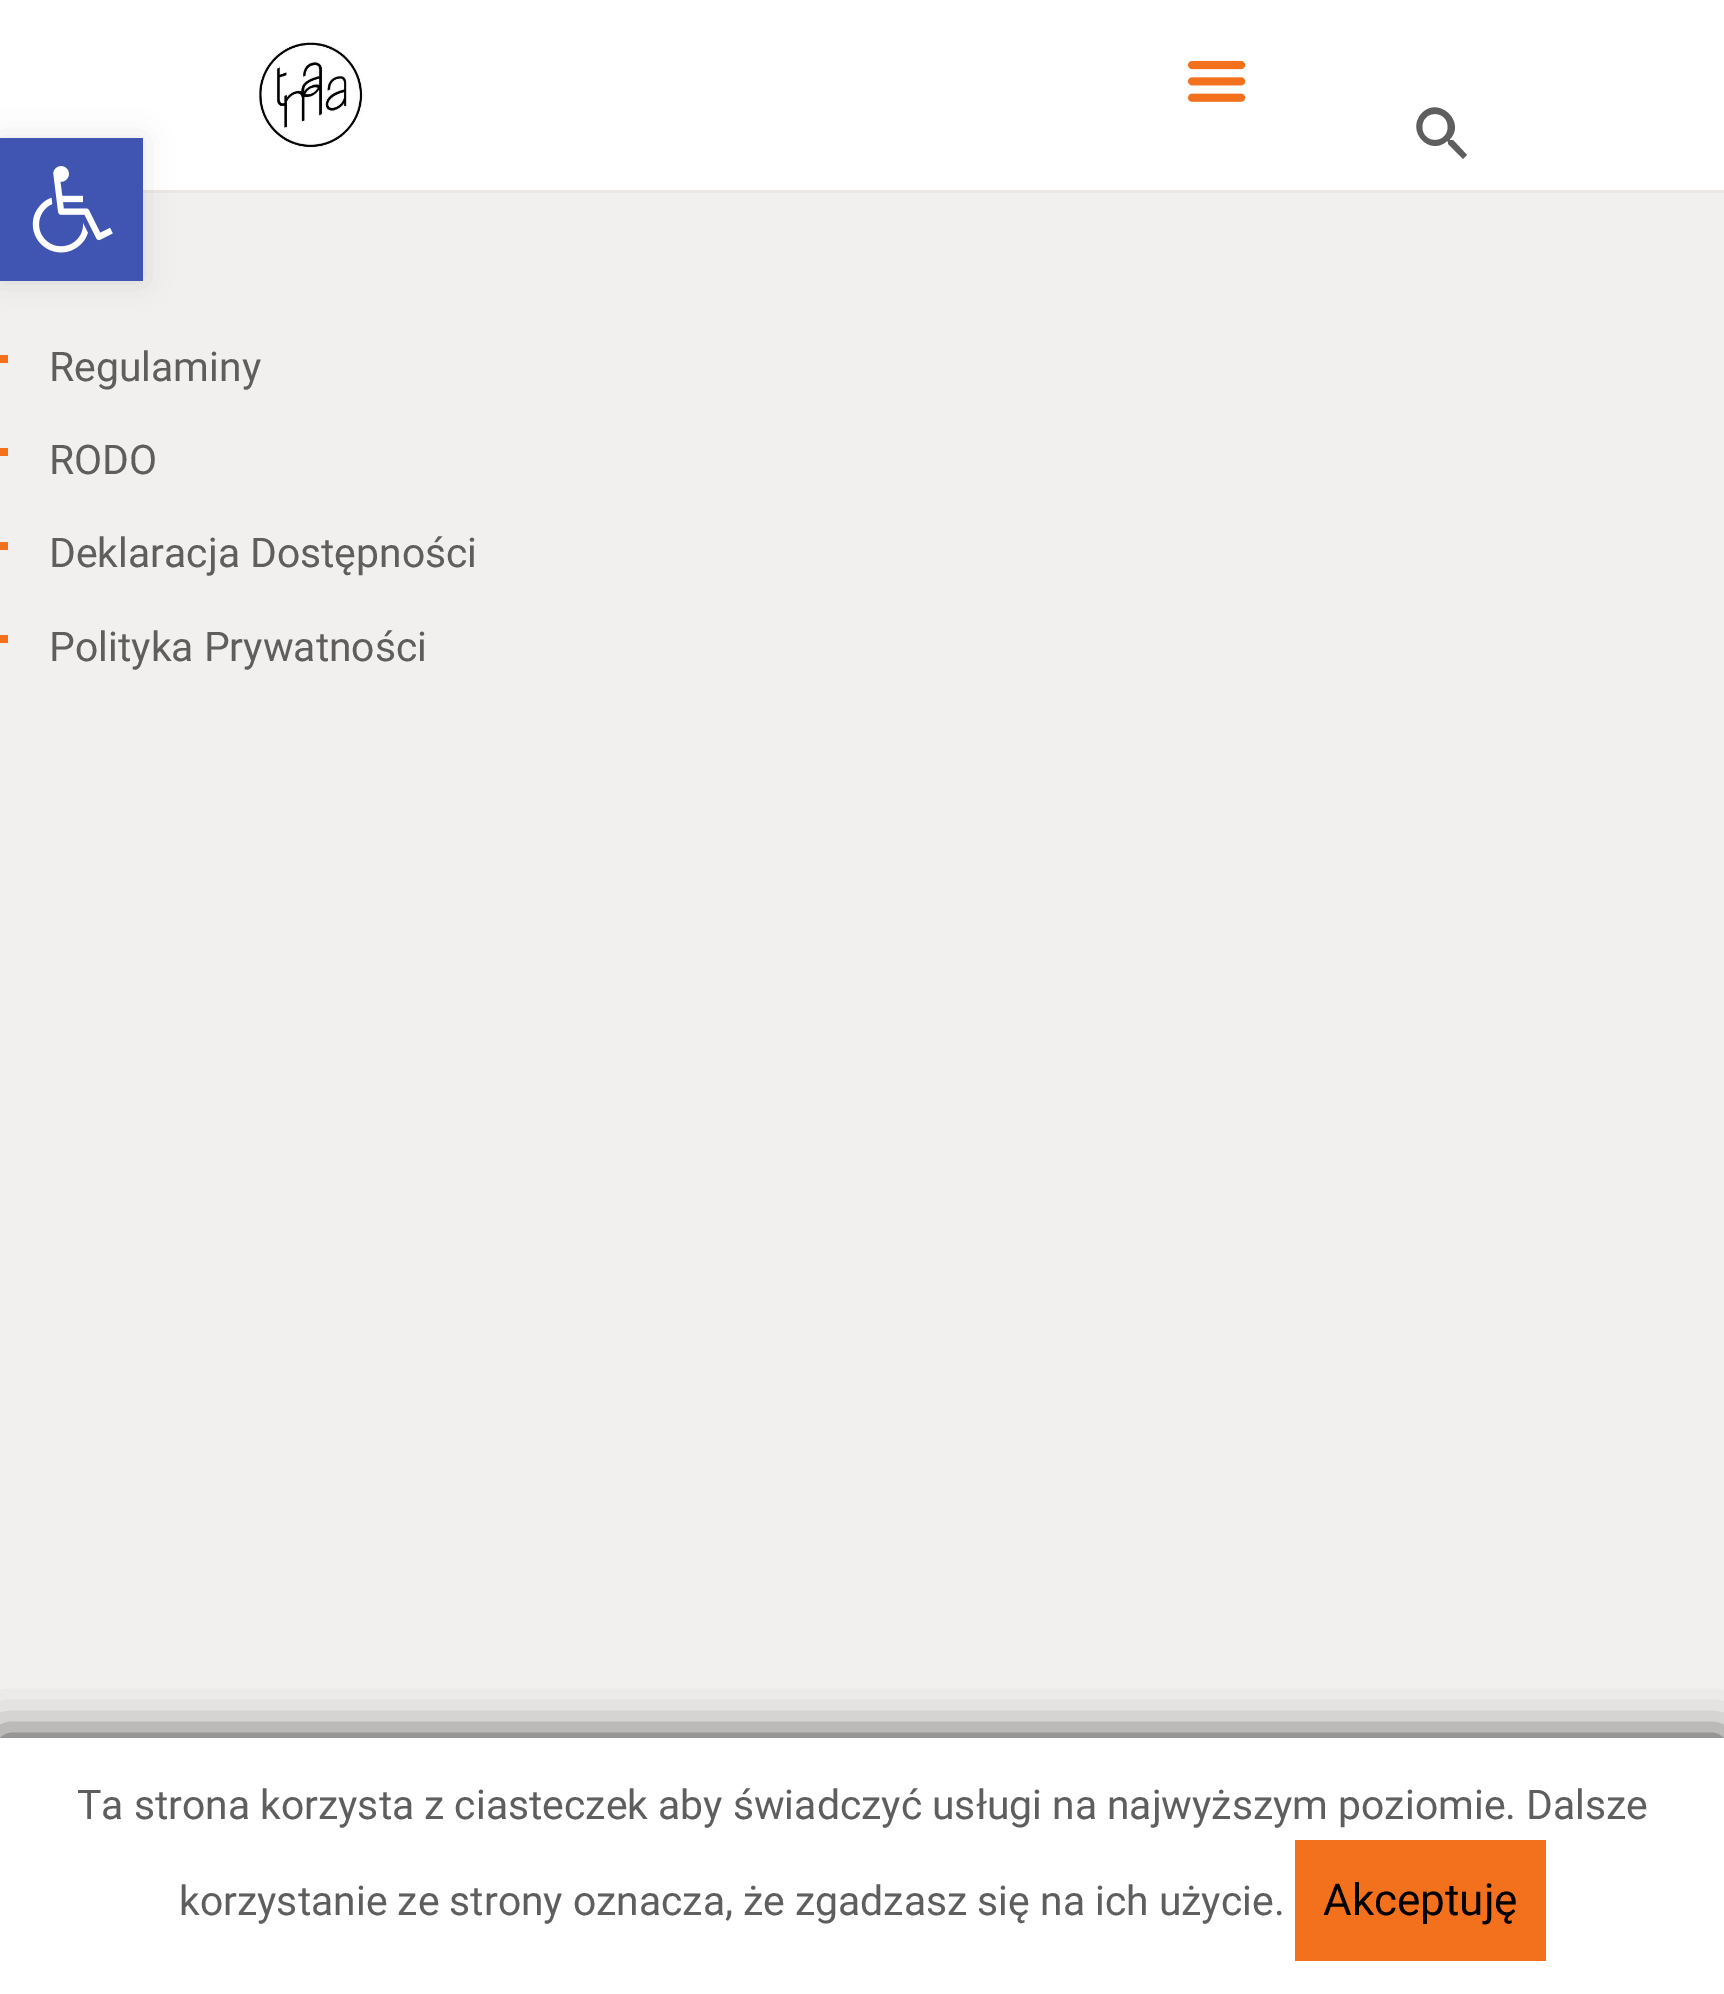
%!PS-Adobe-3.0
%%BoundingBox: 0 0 1724 1994
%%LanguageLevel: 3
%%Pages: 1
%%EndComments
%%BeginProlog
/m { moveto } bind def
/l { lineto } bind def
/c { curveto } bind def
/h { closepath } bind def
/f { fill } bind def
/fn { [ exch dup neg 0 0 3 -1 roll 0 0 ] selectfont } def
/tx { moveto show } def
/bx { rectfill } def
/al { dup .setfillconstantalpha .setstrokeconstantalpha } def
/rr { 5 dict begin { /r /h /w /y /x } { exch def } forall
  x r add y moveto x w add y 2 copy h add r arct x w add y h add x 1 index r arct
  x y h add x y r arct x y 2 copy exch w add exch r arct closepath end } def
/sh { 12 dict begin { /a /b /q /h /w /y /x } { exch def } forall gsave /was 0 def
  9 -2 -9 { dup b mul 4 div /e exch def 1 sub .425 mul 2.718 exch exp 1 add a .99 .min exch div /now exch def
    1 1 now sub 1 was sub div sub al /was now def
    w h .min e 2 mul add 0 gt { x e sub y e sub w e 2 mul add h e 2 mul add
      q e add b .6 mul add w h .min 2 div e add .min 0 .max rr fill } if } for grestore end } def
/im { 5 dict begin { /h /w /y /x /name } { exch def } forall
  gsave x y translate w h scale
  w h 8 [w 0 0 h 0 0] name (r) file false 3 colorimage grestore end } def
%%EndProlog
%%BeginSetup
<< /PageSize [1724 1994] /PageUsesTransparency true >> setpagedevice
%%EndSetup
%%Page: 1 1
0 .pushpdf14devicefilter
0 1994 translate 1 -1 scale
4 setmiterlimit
0.949 0.941 0.933 setrgbcolor
0 0 1724 1994 bx
1 setgray
0 0 1724 190 bx
0.918 0.906 0.894 setrgbcolor
143 190 1581 3 bx
0 setgray
0 138 143 143 0 14 0.1 sh
0.251 0.329 0.698 setrgbcolor
0 138 143 143 bx
(image0.raw) 32 166 81 87 im
(image1.raw) 258 42 105 106 im
(image2.raw) 1188 60 58 42 im
0.369 setgray
1453 140 m 1450 140 l 1450 139 l 1466 122 1439 96 1422 113 c 1405 131 1430 157 1447 141 c 1448 142 l 1448 144 l 1463 159 l 1467 155 l h 1435 140 m 1418 140 1418 114 1435 114 c 1452 114 1452 140 1435 140 c h f
0.953 0.439 0.114 setrgbcolor
0 355 8 8 bx
/Roboto-Regular 40.85 fn
0.369 setgray
(Regulaminy) 49 381 tx
0.953 0.439 0.114 setrgbcolor
0 448 8 8 bx
0.369 setgray
(RODO) 49 474 tx
0.953 0.439 0.114 setrgbcolor
0 542 8 8 bx
0.369 setgray
(Deklaracja Dostępności) 49 567 tx
0.953 0.439 0.114 setrgbcolor
0 635 8 8 bx
0.369 setgray
(Polityka Prywatności) 49 661 tx
0 setgray
0 1738 1724 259 0 22 0.75 sh
1 setgray
0 1738 1724 256 bx
0.369 setgray
77 1819 m -0.1 0 32 (Ta strona korzysta z ciasteczek aby świadczyć usługi na najwyższym poziomie. Dalsze) widthshow
179 1915 m -0.1 0 32 (korzystanie ze strony oznacza, że zgadzasz się na ich użycie.) widthshow
0.953 0.439 0.114 setrgbcolor
1295 1840 251 121 bx
/Roboto-Regular 44 fn
0 setgray
(Akceptuję) 1323 1915 tx
.poppdf14devicefilter showpage
%%EOF
